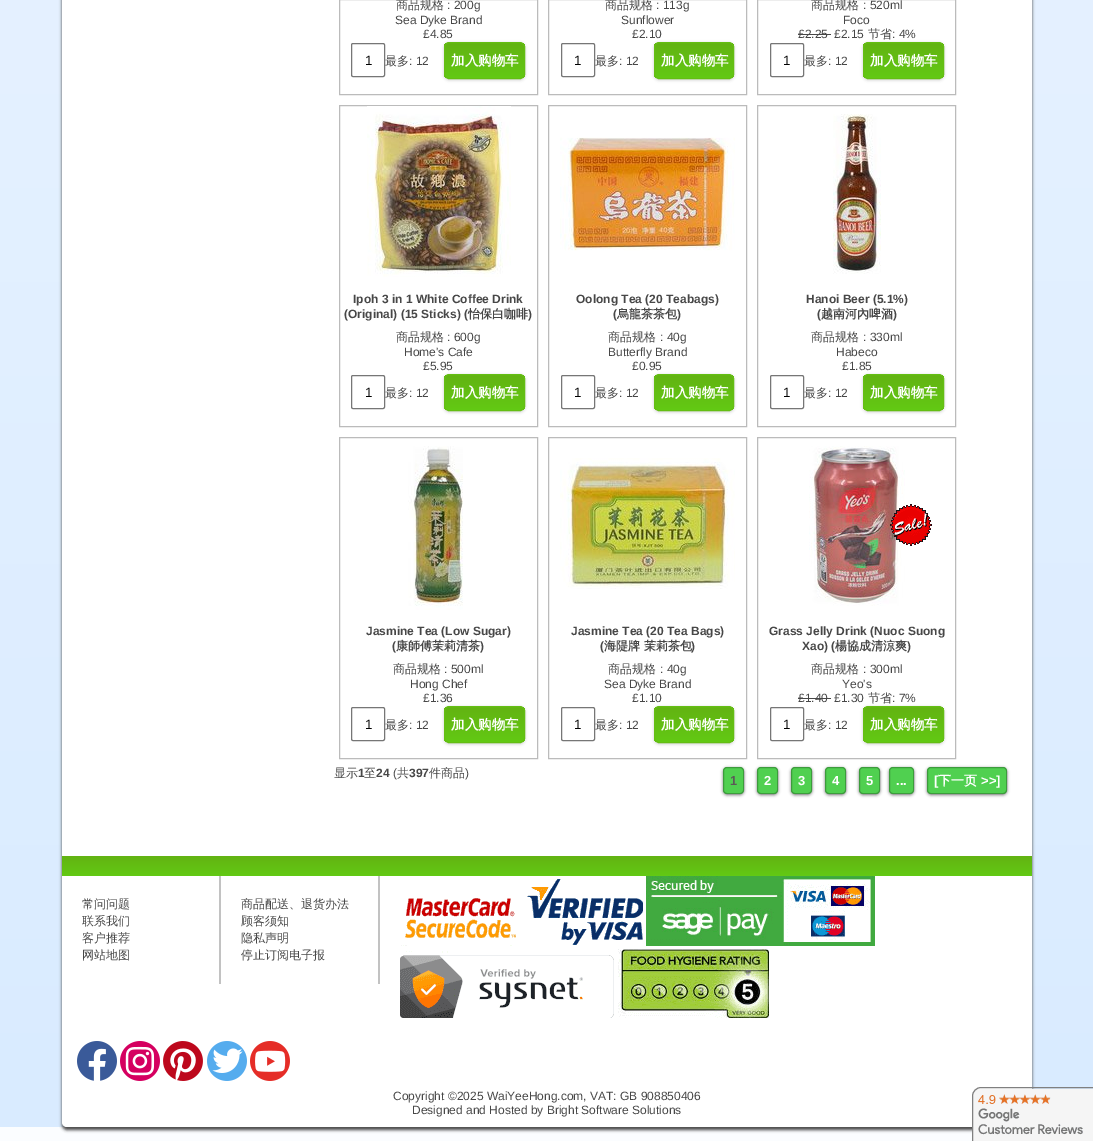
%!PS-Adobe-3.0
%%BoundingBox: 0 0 1093 1141
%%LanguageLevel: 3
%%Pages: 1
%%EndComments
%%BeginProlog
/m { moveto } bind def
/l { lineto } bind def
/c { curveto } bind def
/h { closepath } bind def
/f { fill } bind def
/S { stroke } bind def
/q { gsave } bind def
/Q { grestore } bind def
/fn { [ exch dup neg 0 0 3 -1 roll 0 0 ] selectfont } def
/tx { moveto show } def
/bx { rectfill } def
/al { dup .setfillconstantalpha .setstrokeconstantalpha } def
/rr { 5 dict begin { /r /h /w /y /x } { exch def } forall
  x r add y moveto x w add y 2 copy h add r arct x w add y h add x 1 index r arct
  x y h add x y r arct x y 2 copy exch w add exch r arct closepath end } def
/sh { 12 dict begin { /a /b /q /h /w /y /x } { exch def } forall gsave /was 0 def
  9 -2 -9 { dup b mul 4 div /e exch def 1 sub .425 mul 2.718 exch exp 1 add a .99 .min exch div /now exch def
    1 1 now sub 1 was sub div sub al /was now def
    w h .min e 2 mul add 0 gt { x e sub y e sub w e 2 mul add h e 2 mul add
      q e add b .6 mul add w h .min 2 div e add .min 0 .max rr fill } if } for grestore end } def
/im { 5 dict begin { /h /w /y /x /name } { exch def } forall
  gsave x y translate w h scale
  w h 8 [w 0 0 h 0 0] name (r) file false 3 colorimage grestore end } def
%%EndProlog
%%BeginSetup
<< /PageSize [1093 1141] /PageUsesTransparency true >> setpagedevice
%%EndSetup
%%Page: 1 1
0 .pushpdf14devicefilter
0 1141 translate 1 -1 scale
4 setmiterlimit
1 setgray
0 0 1093 1141 bx
q 0 1127 m 972 1127 l 972 1141 l 0 1141 l h clip newpath
<< /ShadingType 2 /ColorSpace /DeviceRGB /Coords [546 1024 547 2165] /Extend [true true] /Function << /FunctionType 2 /Domain [0 1] /C0 [1 1 1] /C1 [0.851 0.922 1] /N 1 >> >> shfill Q
q 0 0 m 1093 0 l 1093 1127 l 0 1127 l h clip newpath
<< /ShadingType 2 /ColorSpace /DeviceRGB /Coords [546 -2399 547 1127] /Extend [true true] /Function << /FunctionType 2 /Domain [0 1] /C0 [1 1 1] /C1 [0.851 0.922 1] /N 1 >> >> shfill Q
0.29 setgray
62 -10 970 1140 5 1.5 1 sh
1 setgray
62 -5 m 1032 -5 l 1032 1122 l 1032 1125 1030 1127 1027 1127 c 67 1127 l 64 1127 62 1125 62 1122 c h f
0.733 setgray
339.5 -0.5 198 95 rectstroke
/WenQuanYiZenHei-Medium 12 fn
0.278 setgray
(商品规格) 396 9 tx
/LiberationSans-Regular 12 fn
(: 200g) 447 9 tx
(Sea Dyke Brand) 395 24 tx
(£4.85) 423 38 tx
0.463 setgray
351.5 43.5 33 33 1.5 rr S
/LiberationSans-Regular 13.5 fn
0 setgray
(1) 365 65 tx
/WenQuanYiZenHei-Medium 12 fn
0.278 setgray
(最多) 385 65 tx
/LiberationSans-Regular 12 fn
(: 12) 409 65 tx
0.8 setgray
444 43 81 37 5 1.5 1 sh
q
444 42 81 37 5 rr clip newpath
q 444 43 m 525 43 l 525 78 l 444 78 l h clip newpath
<< /ShadingType 2 /ColorSpace /DeviceRGB /Coords [485 43 485 78] /Extend [true true] /Function << /FunctionType 2 /Domain [0 1] /C0 [0.384 0.702 0.071] /C1 [0.384 0.788 0.078] /N 1 >> >> shfill Q
Q
0.392 0.745 0.075 setrgbcolor
444.5 42.5 80 36 4.5 rr S
/WenQuanYiZenHei-Bold 13.5 fn
1 setgray
(加入购物车) 451 65 tx
0.733 setgray
548.5 -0.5 198 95 rectstroke
/WenQuanYiZenHei-Medium 12 fn
0.278 setgray
(商品规格) 605 9 tx
/LiberationSans-Regular 12 fn
(: 113g) 656 9 tx
(Sunflower) 621 24 tx
(£2.10) 632 38 tx
0.463 setgray
561.5 43.5 33 33 1.5 rr S
/LiberationSans-Regular 13.5 fn
0 setgray
(1) 574 65 tx
/WenQuanYiZenHei-Medium 12 fn
0.278 setgray
(最多) 595 65 tx
/LiberationSans-Regular 12 fn
(: 12) 619 65 tx
0.8 setgray
654 43 80 37 5 1.5 1 sh
q
654 42 80 37 5 rr clip newpath
q 654 43 m 734 43 l 734 78 l 654 78 l h clip newpath
<< /ShadingType 2 /ColorSpace /DeviceRGB /Coords [694 43 694 78] /Extend [true true] /Function << /FunctionType 2 /Domain [0 1] /C0 [0.384 0.702 0.071] /C1 [0.384 0.788 0.078] /N 1 >> >> shfill Q
Q
0.392 0.745 0.075 setrgbcolor
654.5 42.5 79 36 4.5 rr S
/WenQuanYiZenHei-Bold 13.5 fn
1 setgray
(加入购物车) 661 65 tx
0.733 setgray
757.5 -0.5 198 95 rectstroke
/WenQuanYiZenHei-Medium 12 fn
0.278 setgray
(商品规格) 811 9 tx
/LiberationSans-Regular 12 fn
(: 520ml) 863 9 tx
(Foco) 843 24 tx
(£2.25) 798 38 tx
798 34 33 1 bx
(£2.15) 834 38 tx
/WenQuanYiZenHei-Medium 12 fn
(节省) 868 38 tx
/LiberationSans-Regular 12 fn
(: 4%) 892 38 tx
0.463 setgray
770.5 43.5 33 33 1.5 rr S
/LiberationSans-Regular 13.5 fn
0 setgray
(1) 783 65 tx
/WenQuanYiZenHei-Medium 12 fn
0.278 setgray
(最多) 804 65 tx
/LiberationSans-Regular 12 fn
(: 12) 828 65 tx
0.8 setgray
863 43 81 37 5 1.5 1 sh
q
863 42 81 37 5 rr clip newpath
q 863 43 m 944 43 l 944 78 l 863 78 l h clip newpath
<< /ShadingType 2 /ColorSpace /DeviceRGB /Coords [904 43 904 78] /Extend [true true] /Function << /FunctionType 2 /Domain [0 1] /C0 [0.384 0.702 0.071] /C1 [0.384 0.788 0.078] /N 1 >> >> shfill Q
Q
0.392 0.745 0.075 setrgbcolor
863.5 42.5 80 36 4.5 rr S
/WenQuanYiZenHei-Bold 13.5 fn
1 setgray
(加入购物车) 870 65 tx
0.733 setgray
339.5 105.5 198 321 rectstroke
(image0.raw) 367 106 144 171 im
/LiberationSans-Bold 12 fn
0.278 setgray
(Ipoh 3 in 1 White Coffee Drink) 353 303 tx
(\(Original\) \(15 Sticks\) \() 344 318 tx
/WenQuanYiZenHei-Bold 12 fn
(怡保白咖啡) 468 318 tx
/LiberationSans-Bold 12 fn
(\)) 528 318 tx
/WenQuanYiZenHei-Medium 12 fn
(商品规格) 396 341 tx
/LiberationSans-Regular 12 fn
(: 600g) 447 341 tx
(Home's Cafe) 404 356 tx
(£5.95) 423 370 tx
0.463 setgray
351.5 375.5 33 33 1.5 rr S
/LiberationSans-Regular 13.5 fn
0 setgray
(1) 365 397 tx
/WenQuanYiZenHei-Medium 12 fn
0.278 setgray
(最多) 385 397 tx
/LiberationSans-Regular 12 fn
(: 12) 409 397 tx
0.8 setgray
444 375 81 37 5 1.5 1 sh
q
444 374 81 37 5 rr clip newpath
q 444 375 m 525 375 l 525 410 l 444 410 l h clip newpath
<< /ShadingType 2 /ColorSpace /DeviceRGB /Coords [485 375 485 410] /Extend [true true] /Function << /FunctionType 2 /Domain [0 1] /C0 [0.384 0.702 0.071] /C1 [0.384 0.788 0.078] /N 1 >> >> shfill Q
Q
0.392 0.745 0.075 setrgbcolor
444.5 374.5 80 36 4.5 rr S
/WenQuanYiZenHei-Bold 13.5 fn
1 setgray
(加入购物车) 451 397 tx
0.733 setgray
548.5 105.5 198 321 rectstroke
(image1.raw) 560 137 175 114 im
/LiberationSans-Bold 12 fn
0.278 setgray
(Oolong Tea \(20 Teabags\)) 576 303 tx
(\() 613 318 tx
/WenQuanYiZenHei-Bold 12 fn
(烏龍茶茶包) 617 318 tx
/LiberationSans-Bold 12 fn
(\)) 677 318 tx
/WenQuanYiZenHei-Medium 12 fn
(商品规格) 608 341 tx
/LiberationSans-Regular 12 fn
(: 40g) 660 341 tx
(Butterfly Brand) 608 356 tx
(£0.95) 632 370 tx
0.463 setgray
561.5 375.5 33 33 1.5 rr S
/LiberationSans-Regular 13.5 fn
0 setgray
(1) 574 397 tx
/WenQuanYiZenHei-Medium 12 fn
0.278 setgray
(最多) 595 397 tx
/LiberationSans-Regular 12 fn
(: 12) 619 397 tx
0.8 setgray
654 375 80 37 5 1.5 1 sh
q
654 374 80 37 5 rr clip newpath
q 654 375 m 734 375 l 734 410 l 654 410 l h clip newpath
<< /ShadingType 2 /ColorSpace /DeviceRGB /Coords [694 375 694 410] /Extend [true true] /Function << /FunctionType 2 /Domain [0 1] /C0 [0.384 0.702 0.071] /C1 [0.384 0.788 0.078] /N 1 >> >> shfill Q
Q
0.392 0.745 0.075 setrgbcolor
654.5 374.5 79 36 4.5 rr S
/WenQuanYiZenHei-Bold 13.5 fn
1 setgray
(加入购物车) 661 397 tx
0.733 setgray
757.5 105.5 198 321 rectstroke
(image2.raw) 833 114 48 160 im
/LiberationSans-Bold 12 fn
0.278 setgray
(Hanoi Beer \(5.1%\)) 806 303 tx
(\() 817 318 tx
/WenQuanYiZenHei-Bold 12 fn
(越南河內啤酒) 821 318 tx
/LiberationSans-Bold 12 fn
(\)) 893 318 tx
/WenQuanYiZenHei-Medium 12 fn
(商品规格) 811 341 tx
/LiberationSans-Regular 12 fn
(: 330ml) 863 341 tx
(Habeco) 836 356 tx
(£1.85) 842 370 tx
0.463 setgray
770.5 375.5 33 33 1.5 rr S
/LiberationSans-Regular 13.5 fn
0 setgray
(1) 783 397 tx
/WenQuanYiZenHei-Medium 12 fn
0.278 setgray
(最多) 804 397 tx
/LiberationSans-Regular 12 fn
(: 12) 828 397 tx
0.8 setgray
863 375 81 37 5 1.5 1 sh
q
863 374 81 37 5 rr clip newpath
q 863 375 m 944 375 l 944 410 l 863 410 l h clip newpath
<< /ShadingType 2 /ColorSpace /DeviceRGB /Coords [904 375 904 410] /Extend [true true] /Function << /FunctionType 2 /Domain [0 1] /C0 [0.384 0.702 0.071] /C1 [0.384 0.788 0.078] /N 1 >> >> shfill Q
Q
0.392 0.745 0.075 setrgbcolor
863.5 374.5 80 36 4.5 rr S
/WenQuanYiZenHei-Bold 13.5 fn
1 setgray
(加入购物车) 870 397 tx
0.733 setgray
339.5 437.5 198 321 rectstroke
(image3.raw) 408 446 55 164 im
/LiberationSans-Bold 12 fn
0.278 setgray
(Jasmine Tea \(Low Sugar\)) 366 635 tx
(\() 392 650 tx
/WenQuanYiZenHei-Bold 12 fn
(康師傅茉莉清茶) 396 650 tx
/LiberationSans-Bold 12 fn
(\)) 480 650 tx
/WenQuanYiZenHei-Medium 12 fn
(商品规格) 393 673 tx
/LiberationSans-Regular 12 fn
(: 500ml) 444 673 tx
(Hong Chef) 410 688 tx
(£1.36) 423 702 tx
0.463 setgray
351.5 707.5 33 33 1.5 rr S
/LiberationSans-Regular 13.5 fn
0 setgray
(1) 365 729 tx
/WenQuanYiZenHei-Medium 12 fn
0.278 setgray
(最多) 385 729 tx
/LiberationSans-Regular 12 fn
(: 12) 409 729 tx
0.8 setgray
444 707 81 37 5 1.5 1 sh
q
444 706 81 37 5 rr clip newpath
q 444 707 m 525 707 l 525 742 l 444 742 l h clip newpath
<< /ShadingType 2 /ColorSpace /DeviceRGB /Coords [485 707 485 742] /Extend [true true] /Function << /FunctionType 2 /Domain [0 1] /C0 [0.384 0.702 0.071] /C1 [0.384 0.788 0.078] /N 1 >> >> shfill Q
Q
0.392 0.745 0.075 setrgbcolor
444.5 706.5 80 36 4.5 rr S
/WenQuanYiZenHei-Bold 13.5 fn
1 setgray
(加入购物车) 451 729 tx
0.733 setgray
548.5 437.5 198 321 rectstroke
(image4.raw) 560 458 175 131 im
/LiberationSans-Bold 12 fn
0.278 setgray
(Jasmine Tea \(20 Tea Bags\)) 571 635 tx
(\() 600 650 tx
/WenQuanYiZenHei-Bold 12 fn
(海隄牌 茉莉茶包) 604 650 tx
/LiberationSans-Bold 12 fn
(\)) 691 650 tx
/WenQuanYiZenHei-Medium 12 fn
(商品规格) 608 673 tx
/LiberationSans-Regular 12 fn
(: 40g) 660 673 tx
(Sea Dyke Brand) 604 688 tx
(£1.10) 632 702 tx
0.463 setgray
561.5 707.5 33 33 1.5 rr S
/LiberationSans-Regular 13.5 fn
0 setgray
(1) 574 729 tx
/WenQuanYiZenHei-Medium 12 fn
0.278 setgray
(最多) 595 729 tx
/LiberationSans-Regular 12 fn
(: 12) 619 729 tx
0.8 setgray
654 707 80 37 5 1.5 1 sh
q
654 706 80 37 5 rr clip newpath
q 654 707 m 734 707 l 734 742 l 654 742 l h clip newpath
<< /ShadingType 2 /ColorSpace /DeviceRGB /Coords [694 707 694 742] /Extend [true true] /Function << /FunctionType 2 /Domain [0 1] /C0 [0.384 0.702 0.071] /C1 [0.384 0.788 0.078] /N 1 >> >> shfill Q
Q
0.392 0.745 0.075 setrgbcolor
654.5 706.5 79 36 4.5 rr S
/WenQuanYiZenHei-Bold 13.5 fn
1 setgray
(加入购物车) 661 729 tx
0.733 setgray
757.5 437.5 198 321 rectstroke
(image5.raw) 809 446 96 160 im
(image6.raw) 890 504 42 42 im
/LiberationSans-Bold 12 fn
0.278 setgray
(Grass Jelly Drink \(Nuoc Suong) 769 635 tx
(Xao\) \() 802 650 tx
/WenQuanYiZenHei-Bold 12 fn
(楊協成清涼爽) 835 650 tx
/LiberationSans-Bold 12 fn
(\)) 907 650 tx
/WenQuanYiZenHei-Medium 12 fn
(商品规格) 811 673 tx
/LiberationSans-Regular 12 fn
(: 300ml) 863 673 tx
(Yeo's) 842 688 tx
(£1.40) 798 702 tx
798 698 33 1 bx
(£1.30) 834 702 tx
/WenQuanYiZenHei-Medium 12 fn
(节省) 868 702 tx
/LiberationSans-Regular 12 fn
(: 7%) 892 702 tx
0.463 setgray
770.5 707.5 33 33 1.5 rr S
/LiberationSans-Regular 13.5 fn
0 setgray
(1) 783 729 tx
/WenQuanYiZenHei-Medium 12 fn
0.278 setgray
(最多) 804 729 tx
/LiberationSans-Regular 12 fn
(: 12) 828 729 tx
0.8 setgray
863 707 81 37 5 1.5 1 sh
q
863 706 81 37 5 rr clip newpath
q 863 707 m 944 707 l 944 742 l 863 742 l h clip newpath
<< /ShadingType 2 /ColorSpace /DeviceRGB /Coords [904 707 904 742] /Extend [true true] /Function << /FunctionType 2 /Domain [0 1] /C0 [0.384 0.702 0.071] /C1 [0.384 0.788 0.078] /N 1 >> >> shfill Q
Q
0.392 0.745 0.075 setrgbcolor
863.5 706.5 80 36 4.5 rr S
/WenQuanYiZenHei-Bold 13.5 fn
1 setgray
(加入购物车) 870 729 tx
/WenQuanYiZenHei-Medium 12 fn
0.278 setgray
(显示) 334 777 tx
/LiberationSans-Bold 12 fn
(1) 358 777 tx
/WenQuanYiZenHei-Medium 12 fn
(至) 364 777 tx
/LiberationSans-Bold 12 fn
(24) 376 777 tx
/LiberationSans-Regular 12 fn
(\() 393 777 tx
/WenQuanYiZenHei-Medium 12 fn
(共) 397 777 tx
/LiberationSans-Bold 12 fn
(397) 409 777 tx
/WenQuanYiZenHei-Medium 12 fn
(件商品) 429 777 tx
/LiberationSans-Regular 12 fn
(\)) 465 777 tx
0 setgray
723 768 21 27 4 1.5 0.5 sh
0.314 0.816 0.314 setrgbcolor
723 767 21 27 4 rr f
0.25 al
0 setgray
723.5 767.5 20 26 3.5 rr S
/LiberationSans-Bold 13 fn
1 al
0.361 0.345 0.345 setrgbcolor
(1) 730 785 tx
0 setgray
757 768 21 27 4 1.5 0.5 sh
0.314 0.816 0.314 setrgbcolor
757 767 21 27 4 rr f
0.25 al
0 setgray
757.5 767.5 20 26 3.5 rr S
1 al
1 setgray
(2) 764 785 tx
0 setgray
791 768 21 27 4 1.5 0.5 sh
0.314 0.816 0.314 setrgbcolor
791 767 21 27 4 rr f
0.25 al
0 setgray
791.5 767.5 20 26 3.5 rr S
1 al
1 setgray
(3) 798 785 tx
0 setgray
825 768 21 27 4 1.5 0.5 sh
0.314 0.816 0.314 setrgbcolor
825 767 21 27 4 rr f
0.25 al
0 setgray
825.5 767.5 20 26 3.5 rr S
1 al
1 setgray
(4) 832 785 tx
0 setgray
859 768 21 27 4 1.5 0.5 sh
0.314 0.816 0.314 setrgbcolor
859 767 21 27 4 rr f
0.25 al
0 setgray
859.5 767.5 20 26 3.5 rr S
1 al
1 setgray
(5) 866 785 tx
0 setgray
889 768 25 27 4 1.5 0.5 sh
0.314 0.816 0.314 setrgbcolor
889 767 25 27 4 rr f
0.25 al
0 setgray
889.5 767.5 24 26 3.5 rr S
1 al
1 setgray
(...) 896 785 tx
0 setgray
927 768 80 27 4 1.5 0.5 sh
0.314 0.816 0.314 setrgbcolor
927 767 80 27 4 rr f
0.25 al
0 setgray
927.5 767.5 79 26 3.5 rr S
1 al
1 setgray
([) 934 785 tx
/WenQuanYiZenHei-Bold 13 fn
(下一页) 938 785 tx
/LiberationSans-Bold 13 fn
(>>]) 981 785 tx
q 62 856 m 1032 856 l 1032 876 l 62 876 l h clip newpath
<< /ShadingType 2 /ColorSpace /DeviceRGB /Coords [547 856 547 876] /Extend [true true] /Function << /FunctionType 2 /Domain [0 1] /C0 [0.384 0.702 0.071] /C1 [0.384 0.788 0.078] /N 1 >> >> shfill Q
0.761 setgray
219 876 2 108 bx
/WenQuanYiZenHei-Medium 12 fn
0.278 setgray
(常问问题) 82 908 tx
(联系我们) 82 925 tx
(客户推荐) 82 942 tx
(网站地图) 82 959 tx
0.761 setgray
378 876 2 108 bx
0.278 setgray
(商品配送、退货办法) 241 908 tx
(顾客须知) 241 925 tx
(隐私声明) 241 942 tx
(停止订阅电子报) 241 959 tx
(image7.raw) 401 898 115 48 im
(image8.raw) 527 879 116 66 im
(image9.raw) 646 876 229 70 im
(image10.raw) 400 951 214 67 im
(image11.raw) 618 949 151 69 im
(image12.raw) 972 1089 121 52 im
0.502 setgray
981 1087.5 m 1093.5 1087.5 l 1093.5 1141.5 l 972.5 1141.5 l 972.5 1096 l 972.5 1091.5 976.5 1087.5 981 1087.5 c h S
(image13.raw) 77 1041 40 40 im
(image14.raw) 120 1041 40 40 im
(image15.raw) 163 1041 40 40 im
(image16.raw) 207 1041 40 40 im
(image17.raw) 250 1041 40 40 im
/LiberationSans-Regular 12 fn
0.278 setgray
(Copyright ©2025 WaiYeeHong.com, VAT: GB 908850406) 393 1100 tx
(Designed and Hosted by Bright Software Solutions) 412 1114 tx
.poppdf14devicefilter showpage
%%EOF
